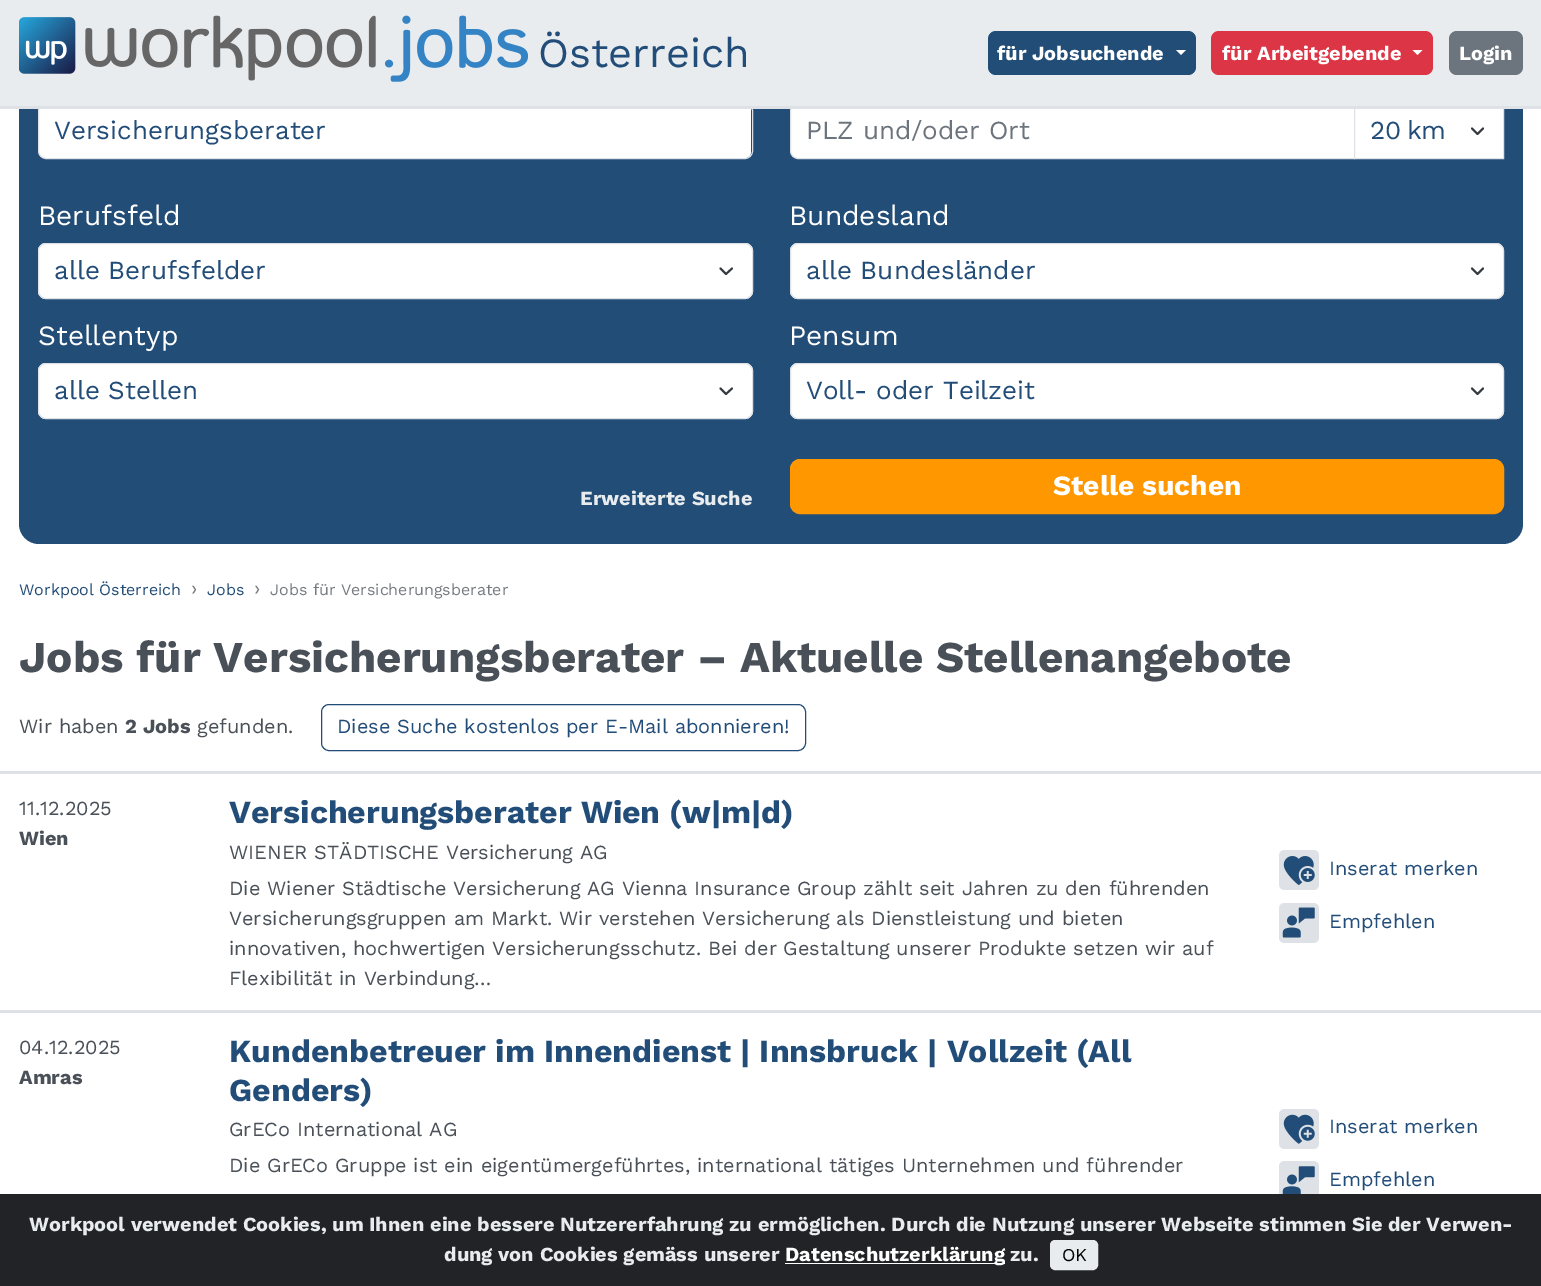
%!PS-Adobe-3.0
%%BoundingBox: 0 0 1541 1286
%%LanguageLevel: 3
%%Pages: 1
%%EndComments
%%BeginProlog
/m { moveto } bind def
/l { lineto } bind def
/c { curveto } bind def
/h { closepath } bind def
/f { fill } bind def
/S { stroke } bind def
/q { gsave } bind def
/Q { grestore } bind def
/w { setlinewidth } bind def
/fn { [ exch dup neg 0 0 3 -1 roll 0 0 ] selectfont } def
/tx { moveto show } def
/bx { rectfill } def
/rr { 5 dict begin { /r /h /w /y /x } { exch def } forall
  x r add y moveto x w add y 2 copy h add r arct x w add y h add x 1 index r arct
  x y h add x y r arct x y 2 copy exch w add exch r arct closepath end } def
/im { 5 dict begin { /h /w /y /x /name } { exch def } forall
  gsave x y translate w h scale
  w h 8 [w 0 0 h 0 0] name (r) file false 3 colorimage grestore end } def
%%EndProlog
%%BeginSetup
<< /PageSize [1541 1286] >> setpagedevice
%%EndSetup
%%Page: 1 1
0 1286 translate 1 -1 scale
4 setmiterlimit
1 setgray
0 0 1541 1286 bx
0.133 0.302 0.467 setrgbcolor
19 24 1504 520 20 rr f
1 setgray
39 104 712 54 6 rr f
0.871 0.886 0.902 setrgbcolor
38.5 103.5 714 55 7.5 rr S
1 setgray
797 104 m 1354 104 l 1354 158 l 797 158 l 793.5 158 791 155.5 791 152 c 791 110 l 791 106.5 793.5 104 797 104 c h f
0.871 0.886 0.902 setrgbcolor
798 103.5 m 1354.5 103.5 l 1354.5 158.5 l 798 158.5 l 794 158.5 790.5 155 790.5 151 c 790.5 111 l 790.5 107 794 103.5 798 103.5 c h S
1 setgray
1355 109 148 49 bx
0.204 0.227 0.251 setrgbcolor
1.9 w
1 setlinecap
1 setlinejoin
1472 128.5 m 1477.5 134 l 1483 128.5 l S
0.871 0.886 0.902 setrgbcolor
1 w
0 setlinecap
0 setlinejoin
1354.5 103.5 149 55 rectstroke
0.914 0.925 0.937 setrgbcolor
0 0 1541 106 bx
0.871 0.886 0.902 setrgbcolor
0 106 1541 3 bx
(image0.raw) 19 15 510 67 im
/WorkSans-Regular 41.5 fn
0.133 0.302 0.471 setrgbcolor
(Österreich) 538 67 tx
0.133 0.302 0.467 setrgbcolor
988 31 208 44 8 rr f
/WorkSans-Bold 20 fn
1 setgray
(für Jobsuchende) 997 60 tx
1176 50 m 1186 50 l 1181 55 l h f
0.863 0.208 0.271 setrgbcolor
1211 31 222 44 8 rr f
1 setgray
(für Arbeitgebende) 1222 60 tx
1412.5 50 m 1422.5 50 l 1417.5 55 l h f
0.424 0.459 0.49 setrgbcolor
1449 31 74 44 8 rr f
1 setgray
(Login) 1459 60 tx
/WorkSans-Regular 26 fn
0.133 0.302 0.471 setrgbcolor
(Versicherungsberater) 54 139 tx
0.424 0.459 0.49 setrgbcolor
(PLZ und/oder Ort) 806 139 tx
0.133 0.302 0.471 setrgbcolor
(20 km) 1370 139 tx
/WorkSans-Regular 28 fn
1 setgray
(Berufsfeld) 38 225 tx
38 243 715 56 8 rr f
0.204 0.227 0.251 setrgbcolor
1.9 w
1 setlinecap
1 setlinejoin
720.5 268.5 m 726 274 l 732 268.5 l S
0.871 0.886 0.902 setrgbcolor
1 w
0 setlinecap
0 setlinejoin
38.5 243.5 714 55 7.5 rr S
/WorkSans-Regular 26 fn
0.133 0.302 0.471 setrgbcolor
(alle Berufsfelder) 54 279 tx
/WorkSans-Regular 28 fn
1 setgray
(Bundesland) 789 225 tx
790 243 714 56 8 rr f
0.204 0.227 0.251 setrgbcolor
1.9 w
1 setlinecap
1 setlinejoin
1472 268.5 m 1477.5 274 l 1483 268.5 l S
0.871 0.886 0.902 setrgbcolor
1 w
0 setlinecap
0 setlinejoin
790.5 243.5 713 55 7.5 rr S
/WorkSans-Regular 26 fn
0.133 0.302 0.471 setrgbcolor
(alle Bundesländer) 806 279 tx
/WorkSans-Regular 28 fn
1 setgray
(Stellentyp) 38 345 tx
38 363 715 56 8 rr f
0.204 0.227 0.251 setrgbcolor
1.9 w
1 setlinecap
1 setlinejoin
720.5 388.5 m 726 394 l 732 388.5 l S
0.871 0.886 0.902 setrgbcolor
1 w
0 setlinecap
0 setlinejoin
38.5 363.5 714 55 7.5 rr S
/WorkSans-Regular 26 fn
0.133 0.302 0.471 setrgbcolor
(alle Stellen) 54 399 tx
/WorkSans-Regular 28 fn
1 setgray
(Pensum) 789 345 tx
790 363 714 56 8 rr f
0.204 0.227 0.251 setrgbcolor
1.9 w
1 setlinecap
1 setlinejoin
1472 388.5 m 1477.5 394 l 1483 388.5 l S
0.871 0.886 0.902 setrgbcolor
1 w
0 setlinecap
0 setlinejoin
790.5 363.5 713 55 7.5 rr S
/WorkSans-Regular 26 fn
0.133 0.302 0.471 setrgbcolor
(Voll- oder Teilzeit) 806 399 tx
1 0.596 0 setrgbcolor
790.5 459.5 713 54 9.5 rr q f Q
S
/WorkSans-Bold 28 fn
1 setgray
(Stelle suchen) 1053 495 tx
/WorkSans-Bold 20 fn
0.914 0.925 0.937 setrgbcolor
(Erweiterte Suche) 580 505 tx
/WorkSans-Regular 16 fn
0.133 0.302 0.471 setrgbcolor
(Workpool Österreich) 19 595 tx
/WorkSans-Regular 20 fn
0.467 0.486 0.506 setrgbcolor
(›) 191 595 tx
/WorkSans-Regular 16 fn
0.133 0.302 0.471 setrgbcolor
(Jobs) 207 595 tx
/WorkSans-Regular 20 fn
0.467 0.486 0.506 setrgbcolor
(›) 254 595 tx
/WorkSans-Regular 16 fn
(Jobs für Versicherungsberater) 270 595 tx
/WorkSans-Bold 44 fn
0.286 0.314 0.341 setrgbcolor
(Jobs für Versicherungsberater – Aktuelle Stellenangebote) 19 672 tx
/WorkSans-Regular 20 fn
(Wir haben) 19 733 tx
/WorkSans-Bold 20 fn
(2 Jobs) 125 733 tx
/WorkSans-Regular 20 fn
(gefunden.) 197 733 tx
0.133 0.302 0.471 setrgbcolor
321.5 704.5 484 46 7.5 rr S
(Diese Suche kostenlos per E-Mail abonnieren!) 337 733 tx
0.871 0.886 0.902 setrgbcolor
0 771 1541 3 bx
0 1010 1541 3 bx
0.286 0.314 0.341 setrgbcolor
(11.12.2025) 19 815 tx
/WorkSans-Bold 20 fn
(Wien) 19 845 tx
/WorkSans-Bold 32 fn
0.133 0.302 0.471 setrgbcolor
(Versicherungsberater Wien \(w|m|d\)) 229 823 tx
/WorkSans-Regular 20 fn
0.286 0.314 0.341 setrgbcolor
(WIENER STÄDTISCHE Versicherung AG) 229 859 tx
(Die Wiener Städtische Versicherung AG Vienna Insurance Group zählt seit Jahren zu den führenden) 229 895 tx
(Versicherungsgruppen am Markt. Wir verstehen Versicherung als Dienstleistung und bieten) 229 925 tx
(innovativen, hochwertigen Versicherungsschutz. Bei der Gestaltung unserer Produkte setzen wir auf) 229 955 tx
(Flexibilität in Verbindung…) 229 985 tx
(image1.raw) 1279 850 40 40 im
0.133 0.302 0.471 setrgbcolor
(Inserat merken) 1329 875 tx
(image2.raw) 1279 903 40 40 im
(Empfehlen) 1329 928 tx
0.286 0.314 0.341 setrgbcolor
(04.12.2025) 19 1054 tx
/WorkSans-Bold 20 fn
(Amras) 19 1084 tx
/WorkSans-Bold 32 fn
0.133 0.302 0.471 setrgbcolor
(Kundenbetreuer im Innendienst | Innsbruck | Vollzeit \(All) 229 1062 tx
(Genders\)) 229 1101 tx
/WorkSans-Regular 20 fn
0.286 0.314 0.341 setrgbcolor
(GrECo International AG) 229 1136 tx
(Die GrECo Gruppe ist ein eigentümergeführtes, international tätiges Unternehmen und führender) 229 1172 tx
(image3.raw) 1279 1109 40 40 im
0.133 0.302 0.471 setrgbcolor
(Inserat merken) 1329 1133 tx
(image4.raw) 1279 1161 40 33 im
(Empfehlen) 1329 1186 tx
0.129 0.137 0.153 setrgbcolor
0 1194 1541 92 bx
/WorkSans-Bold 20 fn
0.914 0.925 0.937 setrgbcolor
(Workpool verwendet Cookies, um Ihnen eine bessere Nutzererfahrung zu ermöglichen. Durch die Nutzung unserer Webseite stimmen Sie der Verwen-) 29 1231 tx
(dung von Cookies gemäss unserer) 444 1261 tx
1 setgray
785 1263 220 1 bx
(Datenschutzerklärung) 785 1261 tx
0.914 0.925 0.937 setrgbcolor
(zu.) 1010 1261 tx
1050.5 1240.5 47 29 4.5 rr q f Q
S
/WorkSans-Regular 18 fn
0 setgray
(OK) 1062 1261 tx
showpage
%%EOF
